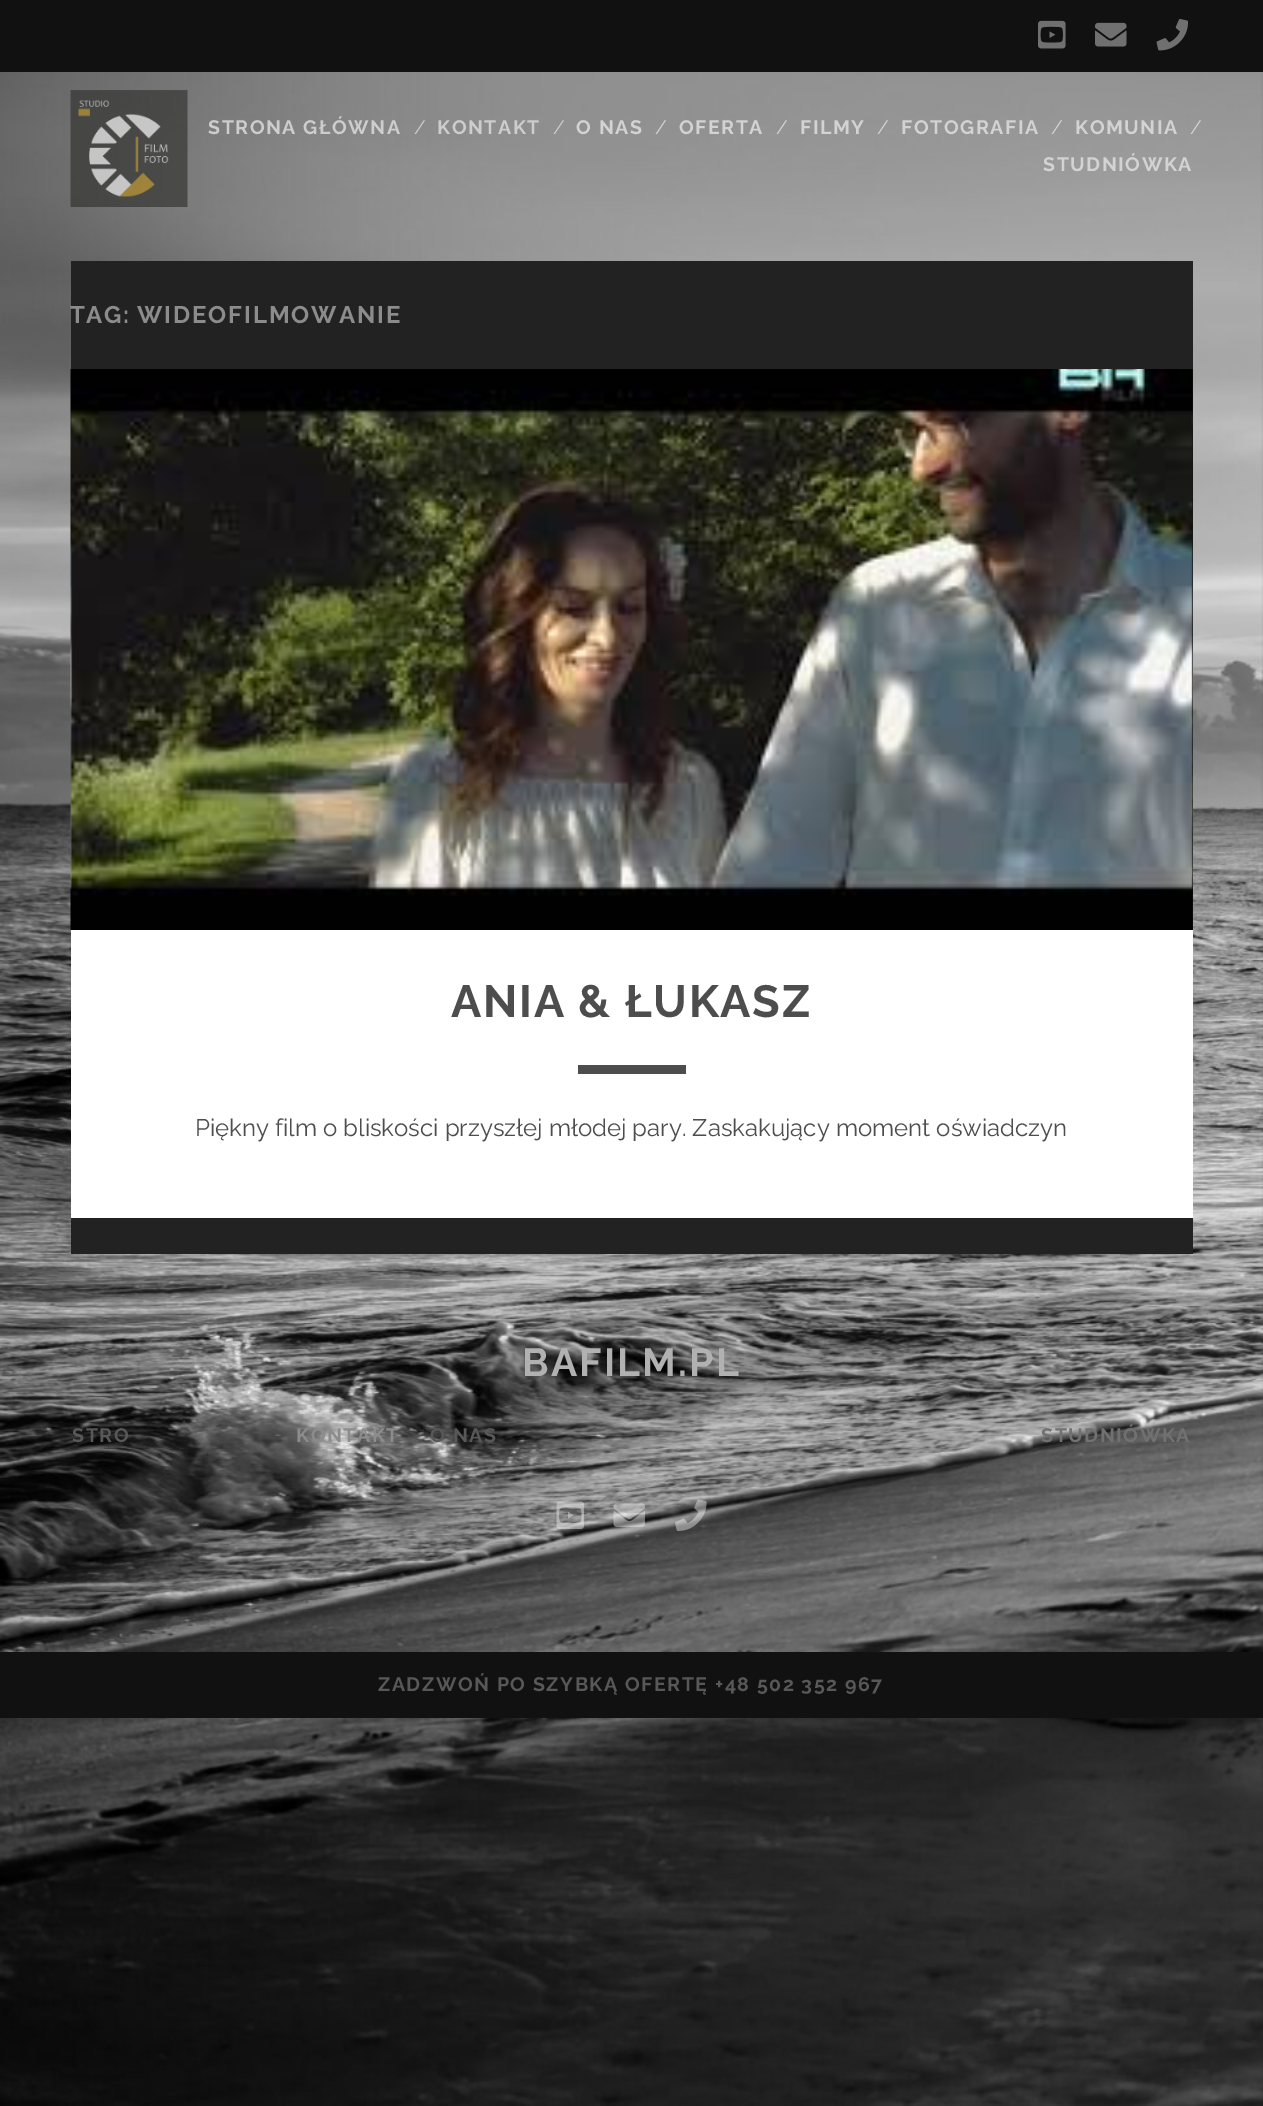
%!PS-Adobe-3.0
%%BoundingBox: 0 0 1263 2106
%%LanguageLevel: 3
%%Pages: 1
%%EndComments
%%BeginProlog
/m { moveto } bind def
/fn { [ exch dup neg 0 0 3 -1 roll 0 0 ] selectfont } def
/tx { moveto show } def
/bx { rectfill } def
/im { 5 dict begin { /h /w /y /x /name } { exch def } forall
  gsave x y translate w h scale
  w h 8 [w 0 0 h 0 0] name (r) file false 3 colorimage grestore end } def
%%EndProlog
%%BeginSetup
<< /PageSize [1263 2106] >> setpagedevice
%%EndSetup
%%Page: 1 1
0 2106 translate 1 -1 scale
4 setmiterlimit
1 setgray
0 0 1263 2106 bx
(image0.raw) 0 72 1263 2034 im
0.067 setgray
0 0 1263 72 bx
(image1.raw) 1038 20 28 29 im
(image2.raw) 1095 22 32 25 im
(image3.raw) 1156 19 32 32 im
(image4.raw) 70 90 118 117 im
/Raleway-Bold 19.5 fn
0.804 setgray
208 134 m 1.55 0 (STRONA GŁÓWNA) ashow
/Raleway-Regular 19.5 fn
(/) 414 134 tx
/Raleway-Bold 19.5 fn
437 134 m 1.55 0 (KONTAKT) ashow
/Raleway-Regular 19.5 fn
(/) 553 134 tx
/Raleway-Bold 19.5 fn
0.827 setgray
576 134 m 1.55 0 (O NAS) ashow
/Raleway-Regular 19.5 fn
(/) 655 134 tx
/Raleway-Bold 19.5 fn
679 134 m 1.55 0 (OFERTA) ashow
/Raleway-Regular 19.5 fn
(/) 776 134 tx
/Raleway-Bold 19.5 fn
800 134 m 1.55 0 (FILMY) ashow
/Raleway-Regular 19.5 fn
(/) 877 134 tx
/Raleway-Bold 19.5 fn
901 134 m 1.55 0 (FOTOGRAFIA) ashow
/Raleway-Regular 19.5 fn
(/) 1051 134 tx
/Raleway-Bold 19.5 fn
1075 134 m 1.55 0 (KOMUNIA) ashow
/Raleway-Regular 19.5 fn
(/) 1190 134 tx
/Raleway-Bold 19.5 fn
1043 171 m 1.55 0 (STUDNIÓWKA) ashow
0.133 setgray
71 261 1122 993 bx
/Raleway-Bold 24 fn
0.549 setgray
70 323 m 1.5 0 (TAG:) ashow
137 323 m 1.9 0 (WIDEOFILMOWANIE) ashow
0.067 setgray
1192 369 1 561 bx
(image5.raw) 70 369 1123 561 im
1 setgray
71 930 1122 288 bx
/Raleway-Bold 45 fn
0.302 setgray
451 1017 m 1.75 0 (ANIA & ŁUKASZ) ashow
578 1065 108 9 bx
/Raleway-Regular 24 fn
(Piękny film o bliskości przyszłej młodej pary. Zaskakujący moment oświadczyn) 195 1136 tx
/Raleway-Bold 39 fn
0.694 setgray
522 1376 m 2.25 0 (BAFILM.PL) ashow
/Raleway-Bold 19.5 fn
0.345 setgray
72 1442 m 1.55 0 (STRO) ashow
0.549 setgray
296 1442 m 1.55 0 (KONTAKT) ashow
0.345 setgray
430 1442 m 1.55 0 (O NAS) ashow
0.443 setgray
1041 1442 m 1.55 0 (STUDNIÓWKA) ashow
(image6.raw) 556 1501 29 28 im
(image7.raw) 613 1503 32 24 im
(image8.raw) 675 1499 32 32 im
0.067 setgray
0 1652 1263 66 bx
0.345 setgray
378 1691 m 1.55 0 (ZADZWOŃ PO SZYBKĄ OFERTĘ +48 502 352 967) ashow
showpage
%%EOF
